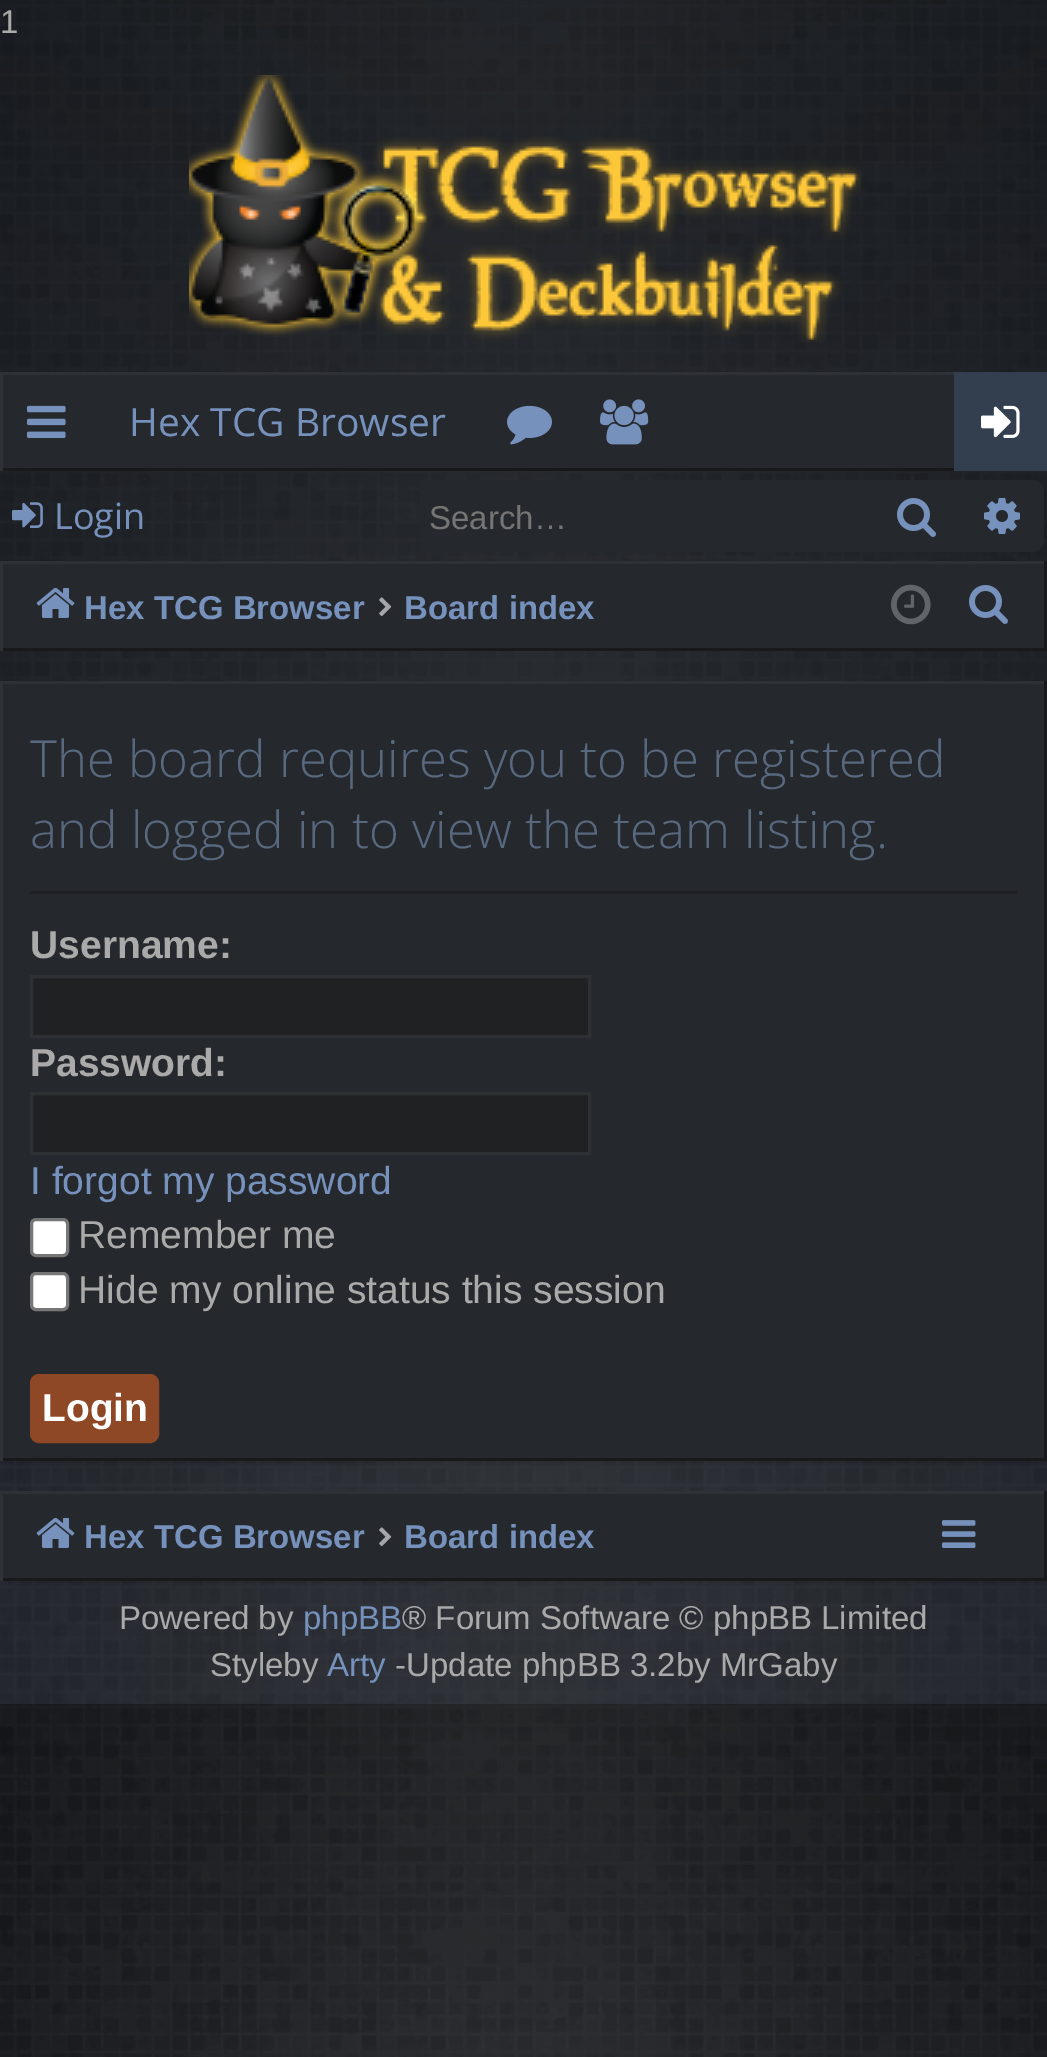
%!PS-Adobe-3.0
%%BoundingBox: 0 0 1047 2057
%%LanguageLevel: 3
%%Pages: 1
%%EndComments
%%BeginProlog
/m { moveto } bind def
/l { lineto } bind def
/c { curveto } bind def
/h { closepath } bind def
/f { fill } bind def
/S { stroke } bind def
/q { gsave } bind def
/Q { grestore } bind def
/w { setlinewidth } bind def
/fn { [ exch dup neg 0 0 3 -1 roll 0 0 ] selectfont } def
/tx { moveto show } def
/bx { rectfill } def
/al { dup .setfillconstantalpha .setstrokeconstantalpha } def
/rr { 5 dict begin { /r /h /w /y /x } { exch def } forall
  x r add y moveto x w add y 2 copy h add r arct x w add y h add x 1 index r arct
  x y h add x y r arct x y 2 copy exch w add exch r arct closepath end } def
/sh { 12 dict begin { /a /b /q /h /w /y /x } { exch def } forall gsave /was 0 def
  9 -2 -9 { dup b mul 4 div /e exch def 1 sub .425 mul 2.718 exch exp 1 add a .99 .min exch div /now exch def
    1 1 now sub 1 was sub div sub al /was now def
    w h .min e 2 mul add 0 gt { x e sub y e sub w e 2 mul add h e 2 mul add
      q e add b .6 mul add w h .min 2 div e add .min 0 .max rr fill } if } for grestore end } def
/im { 5 dict begin { /h /w /y /x /name } { exch def } forall
  gsave x y translate w h scale
  w h 8 [w 0 0 h 0 0] name (r) file false 3 colorimage grestore end } def
%%EndProlog
%%BeginSetup
<< /PageSize [1047 2057] /PageUsesTransparency true >> setpagedevice
%%EndSetup
%%Page: 1 1
0 .pushpdf14devicefilter
0 2057 translate 1 -1 scale
4 setmiterlimit
0.114 0.129 0.153 setrgbcolor
0 0 1047 2057 bx
(image0.raw) 0 1704 1047 353 im
(image1.raw) 0 0 1047 2057 im
/LiberationSans-Regular 33 fn
0.667 setgray
(1) 0 33 tx
(image2.raw) 189 75 672 267 im
0.145 0.157 0.173 setrgbcolor
3 375 951 93 bx
q
0 372 1047 99 rectclip
0.09 0.098 0.106 setrgbcolor
-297 75 m 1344 75 l 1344 768 l -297 768 l h -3 369 m 1044 369 l 1044 468 l -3 468 l h eofill
0.18 0.196 0.216 setrgbcolor
-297 75 m 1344 75 l 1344 768 l -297 768 l h 3 375 m 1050 375 l 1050 474 l 3 474 l h eofill
Q
(image3.raw) 27 405 39 33 im
/OpenSans-Regular 39 fn
0.463 0.573 0.737 setrgbcolor
(Hex TCG Browser) 129 436 tx
(image4.raw) 507 405 45 40 im
(image5.raw) 600 399 49 46 im
0.2 0.243 0.31 setrgbcolor
954 372 93 99 bx
(image6.raw) 981 405 39 33 im
(image7.raw) 12 502 31 26 im
/OpenSans-Regular 36 fn
0.463 0.573 0.737 setrgbcolor
(Login) 54 529 tx
0.145 0.157 0.173 setrgbcolor
420 480 450 72 bx
/LiberationSans-Regular 33 fn
0.459 0.459 0.463 setrgbcolor
(Search…) 429 529 tx
0.145 0.157 0.173 setrgbcolor
870 480 90 72 bx
(image8.raw) 897 498 39 39 im
960 480 m 1032 480 l 1038.5 480 1044 485.5 1044 492 c 1044 540 l 1044 546.5 1038.5 552 1032 552 c 960 552 l h f
(image9.raw) 984 498 36 36 im
3 564 1041 84 bx
0.18 0.196 0.216 setrgbcolor
0 561 1047 3 bx
0.09 0.098 0.106 setrgbcolor
1044 561 3 90 bx
0 648 1047 3 bx
0.18 0.196 0.216 setrgbcolor
0 561 3 90 bx
(image10.raw) 36 587 39 31 im
/LiberationSans-Bold 33 fn
0.463 0.573 0.737 setrgbcolor
(Hex TCG Browser) 84 619 tx
(image11.raw) 379 597 13 20 im
(Board index) 404 619 tx
(image12.raw) 891 584 40 41 im
(image8.raw) 969 585 39 39 im
0 setgray
15 711 1017 750 0 7.5 0.2 sh
0.145 0.157 0.173 setrgbcolor
3 684 1041 774 bx
0.18 0.196 0.216 setrgbcolor
0 681 1047 3 bx
0.09 0.098 0.106 setrgbcolor
1044 681 3 780 bx
0 1458 1047 3 bx
0.18 0.196 0.216 setrgbcolor
0 681 3 780 bx
0.118 0.125 0.141 setrgbcolor
30 891 987 3 bx
/OpenSans-Light 51 fn
0.341 0.408 0.498 setrgbcolor
(The board requires you to be registered) 30 777 tx
(and logged in to view the team listing.) 30 848 tx
/LiberationSans-Bold 39 fn
0.667 setgray
(Username:) 30 958 tx
0.125 0.129 0.137 setrgbcolor
31.5 976.5 m 589.5 976.5 l 589.5 1036.5 l 31.5 1036.5 l h q f Q
0.18 0.192 0.204 setrgbcolor
3 w
S
0.667 setgray
(Password:) 30 1076 tx
0.125 0.129 0.137 setrgbcolor
31.5 1093.5 m 589.5 1093.5 l 589.5 1153.5 l 31.5 1153.5 l h q f Q
0.18 0.192 0.204 setrgbcolor
S
/LiberationSans-Regular 39 fn
0.463 0.573 0.737 setrgbcolor
(I forgot my password) 30 1194 tx
1 setgray
31.5 1219.5 36 36 4.5 rr q f Q
0.463 setgray
S
0.667 setgray
(Remember me) 78 1248 tx
1 setgray
31.5 1273.5 36 36 4.5 rr q f Q
0.463 setgray
S
0.667 setgray
(Hide my online status this session) 78 1303 tx
0.561 0.282 0.145 setrgbcolor
31.5 1375.5 126 66 7.5 rr q f Q
S
/LiberationSans-Bold 39 fn
1 setgray
(Login) 42 1421 tx
0 setgray
15 1521 1017 60 0 7.5 0.2 sh
0.145 0.157 0.173 setrgbcolor
3 1494 1041 84 bx
0.18 0.196 0.216 setrgbcolor
0 1491 1047 3 bx
0.09 0.098 0.106 setrgbcolor
1044 1491 3 90 bx
0 1578 1047 3 bx
0.18 0.196 0.216 setrgbcolor
0 1491 3 90 bx
(image10.raw) 36 1517 39 31 im
/LiberationSans-Bold 33 fn
0.463 0.573 0.737 setrgbcolor
(Hex TCG Browser) 84 1548 tx
(image11.raw) 379 1527 13 20 im
(Board index) 404 1548 tx
(image13.raw) 942 1520 34 28 im
/LiberationSans-Regular 33 fn
0.667 setgray
(Powered by) 119 1629 tx
0.463 0.573 0.737 setrgbcolor
(phpBB) 303 1629 tx
0.667 setgray
(® Forum Software © phpBB Limited) 402 1629 tx
(Styleby) 210 1676 tx
0.463 0.573 0.737 setrgbcolor
(Arty) 327 1676 tx
0.667 setgray
(-Update phpBB 3.2by MrGaby) 395 1676 tx
.poppdf14devicefilter showpage
%%EOF
